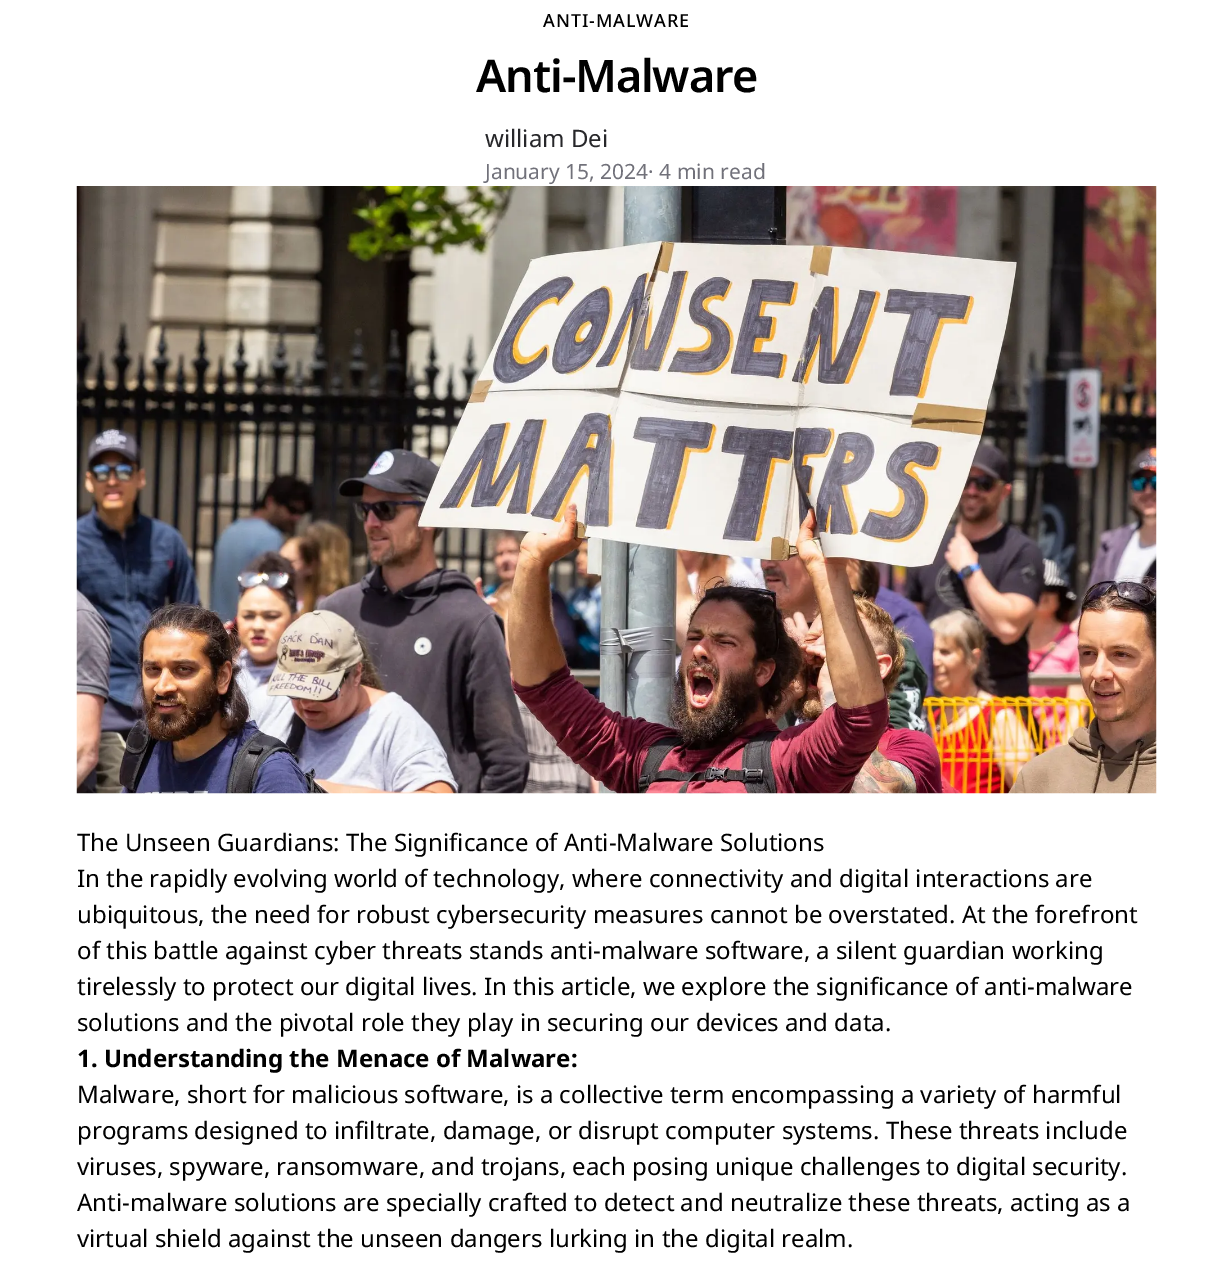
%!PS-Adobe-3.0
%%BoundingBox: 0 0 1232 1269
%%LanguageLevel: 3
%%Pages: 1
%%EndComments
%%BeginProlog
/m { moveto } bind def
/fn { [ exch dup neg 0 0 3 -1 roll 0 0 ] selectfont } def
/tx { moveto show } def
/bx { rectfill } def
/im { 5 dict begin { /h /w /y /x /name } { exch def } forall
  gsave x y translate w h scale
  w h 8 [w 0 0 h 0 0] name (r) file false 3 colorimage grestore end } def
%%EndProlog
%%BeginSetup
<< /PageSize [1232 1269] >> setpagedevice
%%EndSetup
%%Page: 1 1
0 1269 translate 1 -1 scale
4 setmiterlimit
1 setgray
0 0 1232 1269 bx
/NotoSans-Medium 18 fn
0 setgray
543 27 m 0.9 0 (ANTI-MALWARE) ashow
/NotoSans-SemiBold 45 fn
476 92 m -1.1 0 (Anti-Malware) ashow
/NotoSans-Regular 24 fn
0.153 0.153 0.165 setrgbcolor
(william Dei) 485 147 tx
/NotoSans-Regular 21 fn
0.443 0.443 0.478 setrgbcolor
(January 15, 2024· 4 min read) 485 179 tx
(image0.raw) 76 186 1081 608 im
/NotoSans-Regular 24 fn
0 setgray
(The Unseen Guardians: The Significance of Anti-Malware Solutions) 77 851 tx
(In the rapidly evolving world of technology, where connectivity and digital interactions are) 77 887 tx
(ubiquitous, the need for robust cybersecurity measures cannot be overstated. At the forefront) 77 923 tx
(of this battle against cyber threats stands anti-malware software, a silent guardian working) 77 959 tx
(tirelessly to protect our digital lives. In this article, we explore the significance of anti-malware) 77 995 tx
(solutions and the pivotal role they play in securing our devices and data.) 77 1031 tx
/NotoSans-Bold 24 fn
(1. Understanding the Menace of Malware:) 77 1067 tx
/NotoSans-Regular 24 fn
(Malware, short for malicious software, is a collective term encompassing a variety of harmful) 77 1103 tx
(programs designed to infiltrate, damage, or disrupt computer systems. These threats include) 77 1139 tx
(viruses, spyware, ransomware, and trojans, each posing unique challenges to digital security.) 77 1175 tx
(Anti-malware solutions are specially crafted to detect and neutralize these threats, acting as a) 77 1211 tx
(virtual shield against the unseen dangers lurking in the digital realm.) 77 1247 tx
showpage
%%EOF
